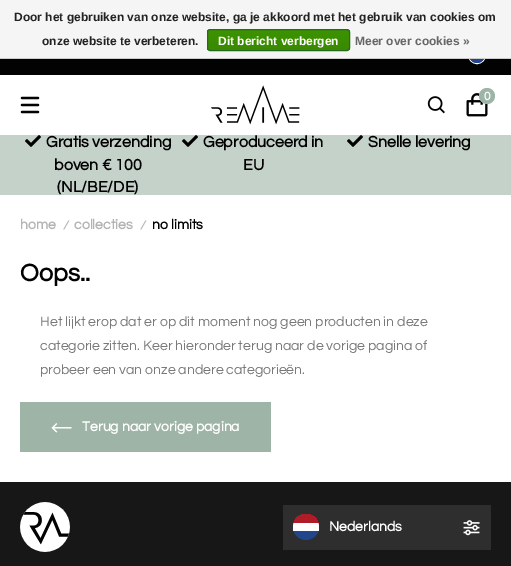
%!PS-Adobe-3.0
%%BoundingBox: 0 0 511 566
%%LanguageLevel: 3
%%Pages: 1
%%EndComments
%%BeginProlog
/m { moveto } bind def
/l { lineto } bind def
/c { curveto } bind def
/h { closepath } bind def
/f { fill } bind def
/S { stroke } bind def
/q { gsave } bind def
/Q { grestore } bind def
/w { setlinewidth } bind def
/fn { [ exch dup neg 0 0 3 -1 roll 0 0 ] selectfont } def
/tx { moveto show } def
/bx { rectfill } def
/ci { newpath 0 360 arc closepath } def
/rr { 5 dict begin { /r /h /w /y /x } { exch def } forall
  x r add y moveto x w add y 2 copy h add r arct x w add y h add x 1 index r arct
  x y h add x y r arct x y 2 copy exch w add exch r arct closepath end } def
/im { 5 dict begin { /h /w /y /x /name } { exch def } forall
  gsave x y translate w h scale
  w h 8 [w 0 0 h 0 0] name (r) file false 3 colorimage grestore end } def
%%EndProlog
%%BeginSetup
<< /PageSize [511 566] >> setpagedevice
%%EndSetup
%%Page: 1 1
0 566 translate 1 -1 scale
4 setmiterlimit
1 setgray
0 0 511 566 bx
0.008 0.008 0.012 setrgbcolor
0 59 511 16 bx
1 setgray
477 55 8.5 ci S
0.129 0.275 0.545 setrgbcolor
477 55 8 ci f
0.961 setgray
0 0 511 58 bx
0.8 setgray
0 58 511 1 bx
/LiberationSans-Bold 12 fn
0.133 setgray
(Door het gebruiken van onze website, ga je akkoord met het gebruik van cookies om) 14 21 tx
(onze website te verbeteren.) 42 45 tx
q
207 29 143 22 3 rr clip newpath
q 207 30 m 350 30 l 350 50 l 207 50 l h clip newpath
<< /ShadingType 2 /ColorSpace /DeviceRGB /Coords [279 30 279 50] /Extend [true true] /Function << /FunctionType 2 /Domain [0 1] /C0 [0.235 0.576 0] /C1 [0.224 0.541 0] /N 1 >> >> shfill Q
Q
0.161 0.412 0.114 setrgbcolor
207.5 29.5 142 21 2.5 rr S
1 setgray
(Dit bericht verbergen) 218 45 tx
0.4 setgray
(Meer over cookies ») 355 45 tx
0.008 0.008 0.012 setrgbcolor
2.2 w
1 setlinecap
38 98 m 22 98 l 38 105 m 22 105 l 22 112 m 38 112 l S
(image0.raw) 211 85 89 40 im
(image1.raw) 427 96 18 18 im
(image2.raw) 466 93 22 24 im
0.62 0.706 0.655 setrgbcolor
487 96 8 ci f
/Questrial-Bold 12 fn
1 setgray
(0) 484 100 tx
0.773 0.824 0.792 setrgbcolor
0 135 511 60 bx
(image3.raw) 25 135 16 12 im
/Questrial-Bold 16 fn
0 setgray
(Gratis verzending) 46 147 tx
(boven € 100) 54 170 tx
(\(NL/BE/DE\)) 57 192 tx
(image3.raw) 182 135 16 12 im
(Geproduceerd in) 203 147 tx
(EU) 243 170 tx
(image3.raw) 347 135 16 12 im
(Snelle levering) 368 147 tx
/Questrial-Bold 14 fn
0.702 setgray
(home) 20 229 tx
/Questrial-BoldItalic 12 fn
(/) 63 229 tx
/Questrial-Bold 14 fn
(collecties) 74 229 tx
/Questrial-BoldItalic 12 fn
(/) 140 229 tx
/Questrial-Bold 14 fn
0 setgray
(no limits) 152 229 tx
/Questrial-Bold 25 fn
(Oops..) 20 281 tx
/Questrial-Regular 14 fn
0.475 0.475 0.478 setrgbcolor
(Het lijkt erop dat er op dit moment nog geen producten in deze) 40 326 tx
(categorie zitten. Keer hieronder terug naar de vorige pagina of) 40 350 tx
(probeer een van onze andere categorieën.) 40 374 tx
0.62 0.706 0.655 setrgbcolor
20 402 251 50 bx
(image4.raw) 51 423 21 10 im
/Questrial-Bold 14 fn
1 setgray
(Terug naar vorige pagina) 82 431 tx
0.09 setgray
0 482 511 84 bx
(image5.raw) 20 502 50 50 im
0.18 setgray
283 505 208 45 bx
0.129 0.275 0.545 setrgbcolor
306 527 13 ci f
q
293 514 26 26 13 rr clip newpath
1 setgray
306 514 m 313 514 319 520 319 527 c 319 531 l 293 531 l 293 527 l 293 520 299 514 306 514 c h f
0.682 0.11 0.157 setrgbcolor
293 514 26 9 bx
Q
1 setgray
(Nederlands) 329 531 tx
(image6.raw) 463 520 17 16 im
showpage
%%EOF
